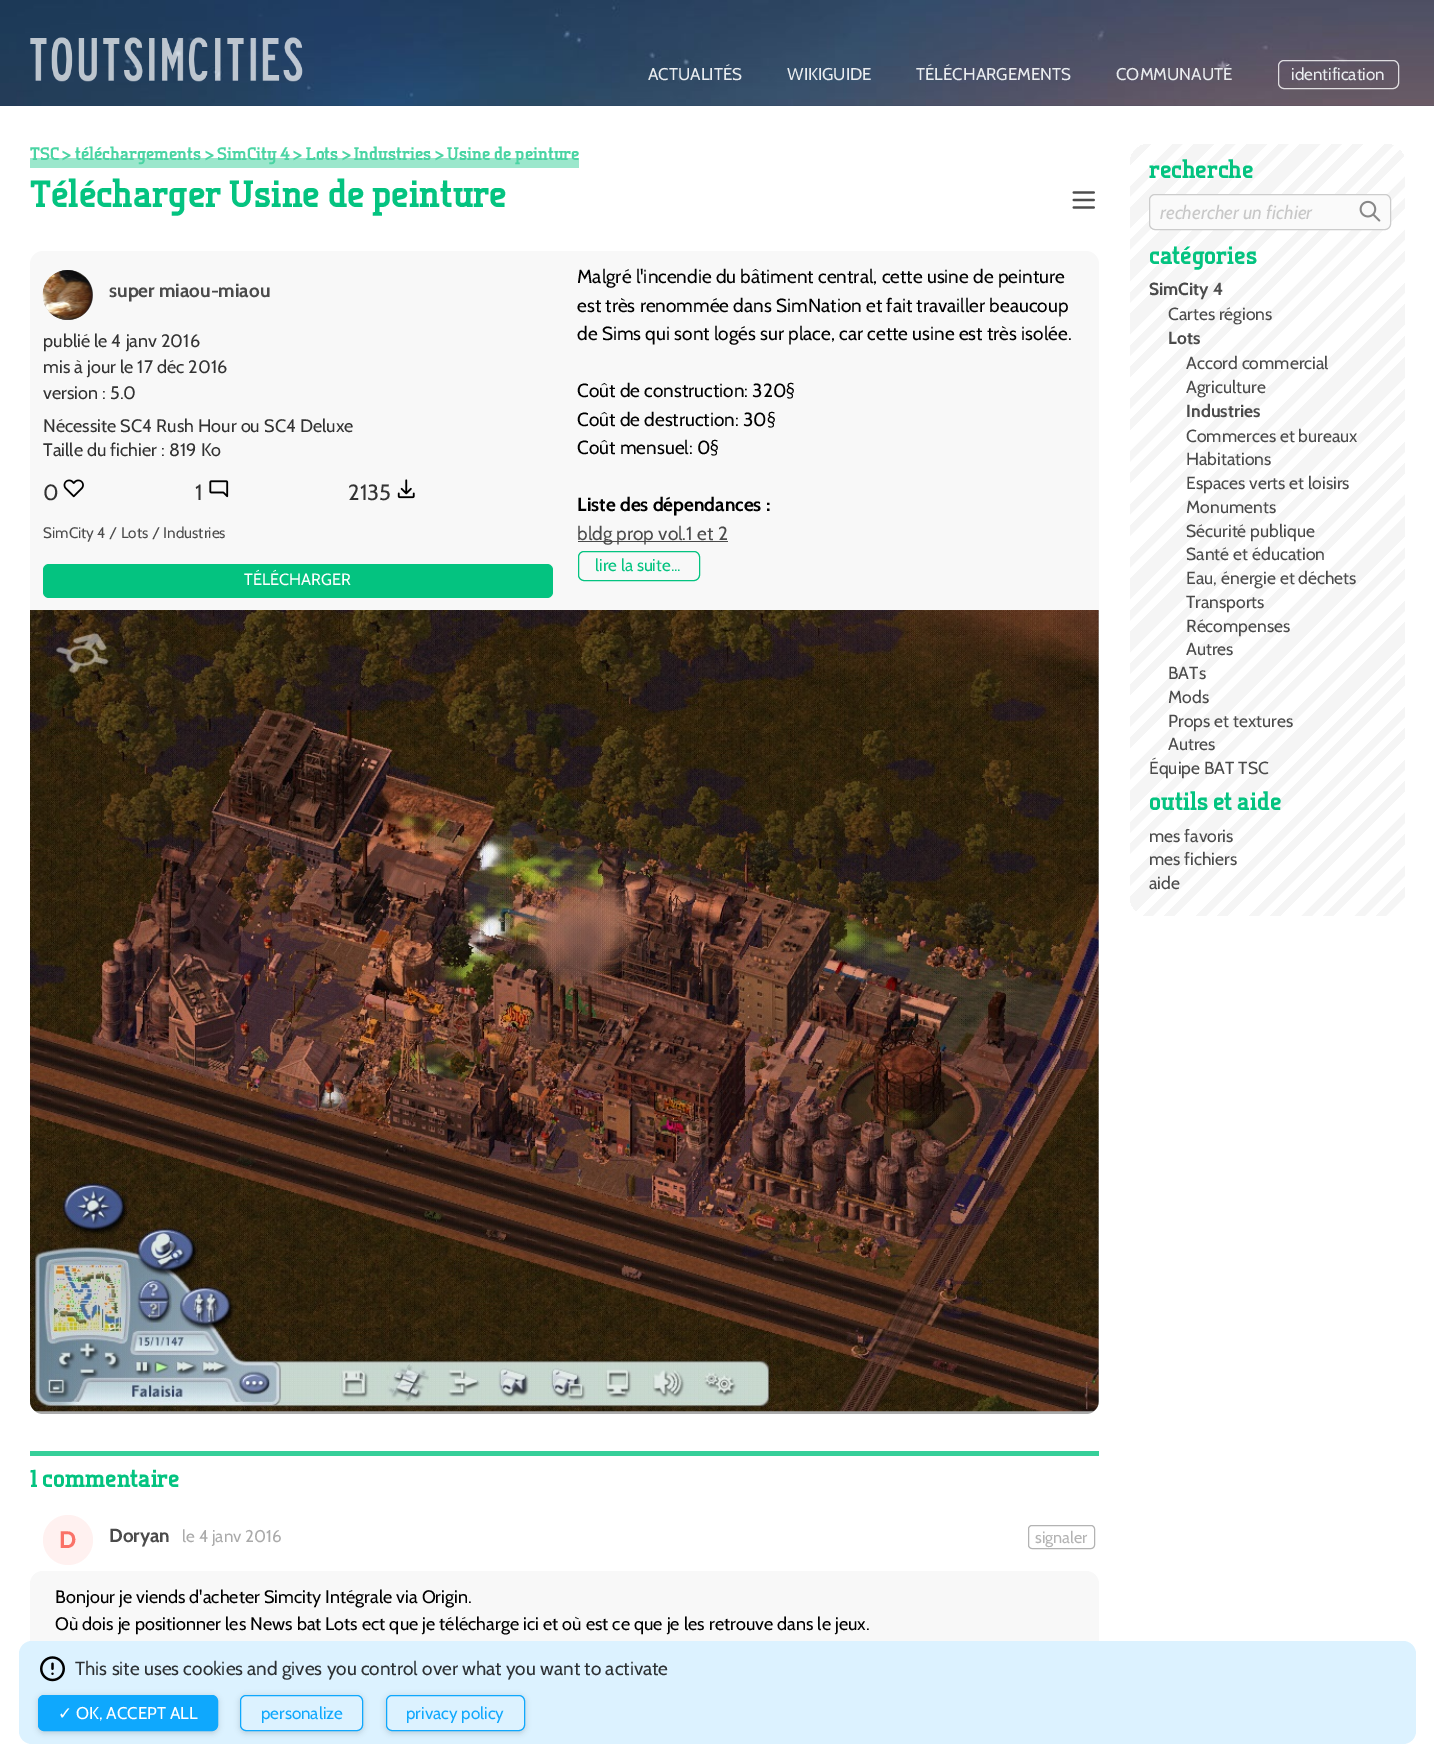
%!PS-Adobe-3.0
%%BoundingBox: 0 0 1434 1749
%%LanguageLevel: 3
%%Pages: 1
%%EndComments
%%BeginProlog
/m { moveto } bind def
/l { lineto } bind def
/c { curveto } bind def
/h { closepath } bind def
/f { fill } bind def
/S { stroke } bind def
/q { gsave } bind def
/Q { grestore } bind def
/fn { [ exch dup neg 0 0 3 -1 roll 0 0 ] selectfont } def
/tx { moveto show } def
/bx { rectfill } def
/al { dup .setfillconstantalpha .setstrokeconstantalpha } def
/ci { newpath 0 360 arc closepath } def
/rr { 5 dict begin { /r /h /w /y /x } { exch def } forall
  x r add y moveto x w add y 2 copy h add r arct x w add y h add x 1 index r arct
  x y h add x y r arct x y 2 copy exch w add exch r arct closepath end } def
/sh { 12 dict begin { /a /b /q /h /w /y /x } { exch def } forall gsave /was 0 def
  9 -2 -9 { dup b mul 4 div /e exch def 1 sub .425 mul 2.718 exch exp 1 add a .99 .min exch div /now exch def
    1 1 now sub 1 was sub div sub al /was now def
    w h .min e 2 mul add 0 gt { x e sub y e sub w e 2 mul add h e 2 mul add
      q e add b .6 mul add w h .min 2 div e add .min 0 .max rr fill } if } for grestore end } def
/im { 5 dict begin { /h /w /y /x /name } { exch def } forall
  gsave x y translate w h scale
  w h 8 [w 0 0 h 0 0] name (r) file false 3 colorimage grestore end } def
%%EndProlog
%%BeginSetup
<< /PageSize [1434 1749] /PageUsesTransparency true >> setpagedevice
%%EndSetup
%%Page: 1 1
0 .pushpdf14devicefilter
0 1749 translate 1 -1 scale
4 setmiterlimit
1 setgray
0 0 1434 1749 bx
(image0.raw) 0 0 1434 106 im
(image1.raw) 30 37 273 45 im
/Cabin-Regular 17 fn
0.918 0.929 0.941 setrgbcolor
(ACTUALITÉS) 648 80 tx
(WIKIGUIDE) 787 80 tx
(TÉLÉCHARGEMENTS) 916 80 tx
(COMMUNAUTÉ) 1116 80 tx
0.8 al
1 setgray
1278.5 60.5 120 28 5.5 rr S
1 al
0.918 0.929 0.941 setrgbcolor
(identification) 1291 80 tx
0.608 0.906 0.8 setrgbcolor
30 158 549 10 bx
/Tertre-ExtraBold 18.05 fn
0.29 0.831 0.639 setrgbcolor
(TSC) 30 160 tx
(>) 62 160 tx
(téléchargements) 75 160 tx
(>) 205 160 tx
(SimCity 4) 217 160 tx
(>) 293 160 tx
(Lots) 306 160 tx
(>) 342 160 tx
(Industries) 354 160 tx
(> Usine de peinture) 435 160 tx
/Tertre-ExtraBold 38 fn
0.016 0.765 0.502 setrgbcolor
(Télécharger Usine de peinture) 30 207 tx
(image2.raw) 1072 191 23 18 im
0.973 setgray
43 251 m 1086 251 l 1093 251 1099 257 1099 264 c 1099 610 l 30 610 l 30 264 l 30 257 36 251 43 251 c h f
0.333 setgray
68 295 25 ci f
(image3.raw) 42 270 51 50 im
/Cabin-Bold 19 fn
0.294 setgray
(super miaou-miaou) 109 297 tx
/Cabin-Regular 18.05 fn
0.2 setgray
(publié le 4 janv 2016) 43 347 tx
(mis à jour le 17 déc 2016) 43 373 tx
(version : 5.0) 43 399 tx
(Nécessite SC4 Rush Hour ou SC4 Deluxe) 43 432 tx
(Taille du fichier : 819 Ko) 43 456 tx
/Cabin-Regular 22 fn
(0) 43 500 tx
(image4.raw) 63 479 21 19 im
(1) 195 500 tx
(image5.raw) 209 480 20 18 im
(2135) 348 500 tx
(image6.raw) 397 479 18 20 im
/Cabin-Regular 15.25 fn
0.294 setgray
(SimCity 4 / Lots / Industries) 43 538 tx
0.016 0.765 0.502 setrgbcolor
43 564 510 34 6 rr f
/Cabin-Regular 16.25 fn
1 setgray
(TÉLÉCHARGER) 244 585 tx
/Cabin-Regular 19 fn
0 setgray
(Malgré l'incendie du bâtiment central, cette usine de peinture) 577 283 tx
(est très renommée dans SimNation et fait travailler beaucoup) 577 312 tx
(de Sims qui sont logés sur place, car cette usine est très isolée.) 577 340 tx
(Coût de construction: 320§) 577 397 tx
(Coût de destruction: 30§) 577 426 tx
(Coût mensuel: 0§) 577 454 tx
/Cabin-Bold 19 fn
(Liste des dépendances :) 577 511 tx
0.29 setgray
578 541 150 1 bx
/Cabin-Regular 19 fn
0.294 setgray
(bldg prop vol.1 et 2) 577 540 tx
0.016 0.765 0.502 setrgbcolor
578.5 551.5 121 29 5.5 rr S
/Cabin-Regular 17 fn
(lire la suite...) 595 571 tx
0.667 setgray
30 610 m 1099 610 l 1099 1401 l 1099 1408 1093 1414 1086 1414 c 43 1414 l 36 1414 30 1408 30 1401 c h f
(image7.raw) 30 610 1069 802 im
0.212 0.812 0.6 setrgbcolor
30 1451 1069 5 bx
/Tertre-ExtraBold 24.75 fn
0.016 0.765 0.502 setrgbcolor
(1 commentaire) 30 1487 tx
1 0.945 0.941 setrgbcolor
68 1540 25 ci f
/Cabin-Bold 24 fn
0.98 0.447 0.408 setrgbcolor
(D) 59 1548 tx
/Cabin-Bold 19 fn
0.294 setgray
(Doryan) 109 1542 tx
/Cabin-Regular 17 fn
0.667 setgray
(le 4 janv 2016) 182 1542 tx
0.702 setgray
1028.5 1525.5 66 23 3.5 rr S
/Cabin-Regular 16.25 fn
(signaler) 1035 1543 tx
0.973 setgray
30 1571 1069 107 13 rr f
/Cabin-Regular 18.05 fn
0 setgray
(Bonjour je viends d'acheter Simcity Intégrale via Origin.) 55 1603 tx
(Où dois je positionner les News bat Lots ect que je télécharge ici et où est ce que je les retrouve dans le jeux.) 55 1630 tx
q 1130 144 275 772 19 rr clip newpath
<< /ShadingType 2 /ColorSpace /DeviceRGB /Coords [1006 268 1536 798] /Extend [true true] /Function << /FunctionType 3 /Domain [0 1] /Functions [<< /FunctionType 2 /Domain [0 1] /C0 [1 1 1] /C1 [1 1 1] /N 1 >> << /FunctionType 2 /Domain [0 1] /C0 [0.961 0.961 0.961] /C1 [0.961 0.961 0.961] /N 1 >> << /FunctionType 2 /Domain [0 1] /C0 [1 1 1] /C1 [1 1 1] /N 1 >> << /FunctionType 2 /Domain [0 1] /C0 [1 1 1] /C1 [1 1 1] /N 1 >> << /FunctionType 2 /Domain [0 1] /C0 [0.961 0.961 0.961] /C1 [0.961 0.961 0.961] /N 1 >> << /FunctionType 2 /Domain [0 1] /C0 [1 1 1] /C1 [1 1 1] /N 1 >> << /FunctionType 2 /Domain [0 1] /C0 [0.961 0.961 0.961] /C1 [0.961 0.961 0.961] /N 1 >> << /FunctionType 2 /Domain [0 1] /C0 [0.961 0.961 0.961] /C1 [0.961 0.961 0.961] /N 1 >> << /FunctionType 2 /Domain [0 1] /C0 [1 1 1] /C1 [1 1 1] /N 1 >> << /FunctionType 2 /Domain [0 1] /C0 [0.961 0.961 0.961] /C1 [0.961 0.961 0.961] /N 1 >> << /FunctionType 2 /Domain [0 1] /C0 [1 1 1] /C1 [1 1 1] /N 1 >> << /FunctionType 2 /Domain [0 1] /C0 [0.961 0.961 0.961] /C1 [0.961 0.961 0.961] /N 1 >> << /FunctionType 2 /Domain [0 1] /C0 [0.961 0.961 0.961] /C1 [0.961 0.961 0.961] /N 1 >> << /FunctionType 2 /Domain [0 1] /C0 [1 1 1] /C1 [1 1 1] /N 1 >> << /FunctionType 2 /Domain [0 1] /C0 [0.961 0.961 0.961] /C1 [0.961 0.961 0.961] /N 1 >> << /FunctionType 2 /Domain [0 1] /C0 [1 1 1] /C1 [1 1 1] /N 1 >> << /FunctionType 2 /Domain [0 1] /C0 [0.961 0.961 0.961] /C1 [0.961 0.961 0.961] /N 1 >> << /FunctionType 2 /Domain [0 1] /C0 [0.961 0.961 0.961] /C1 [0.961 0.961 0.961] /N 1 >> << /FunctionType 2 /Domain [0 1] /C0 [1 1 1] /C1 [1 1 1] /N 1 >> << /FunctionType 2 /Domain [0 1] /C0 [0.961 0.961 0.961] /C1 [0.961 0.961 0.961] /N 1 >> << /FunctionType 2 /Domain [0 1] /C0 [1 1 1] /C1 [1 1 1] /N 1 >> << /FunctionType 2 /Domain [0 1] /C0 [0.961 0.961 0.961] /C1 [0.961 0.961 0.961] /N 1 >> << /FunctionType 2 /Domain [0 1] /C0 [1 1 1] /C1 [1 1 1] /N 1 >> << /FunctionType 2 /Domain [0 1] /C0 [1 1 1] /C1 [1 1 1] /N 1 >> << /FunctionType 2 /Domain [0 1] /C0 [0.961 0.961 0.961] /C1 [0.961 0.961 0.961] /N 1 >> << /FunctionType 2 /Domain [0 1] /C0 [1 1 1] /C1 [1 1 1] /N 1 >> << /FunctionType 2 /Domain [0 1] /C0 [0.961 0.961 0.961] /C1 [0.961 0.961 0.961] /N 1 >> << /FunctionType 2 /Domain [0 1] /C0 [1 1 1] /C1 [1 1 1] /N 1 >> << /FunctionType 2 /Domain [0 1] /C0 [1 1 1] /C1 [1 1 1] /N 1 >> << /FunctionType 2 /Domain [0 1] /C0 [0.961 0.961 0.961] /C1 [0.961 0.961 0.961] /N 1 >> << /FunctionType 2 /Domain [0 1] /C0 [1 1 1] /C1 [1 1 1] /N 1 >> << /FunctionType 2 /Domain [0 1] /C0 [0.961 0.961 0.961] /C1 [0.961 0.961 0.961] /N 1 >> << /FunctionType 2 /Domain [0 1] /C0 [1 1 1] /C1 [1 1 1] /N 1 >> << /FunctionType 2 /Domain [0 1] /C0 [1 1 1] /C1 [1 1 1] /N 1 >> << /FunctionType 2 /Domain [0 1] /C0 [0.961 0.961 0.961] /C1 [0.961 0.961 0.961] /N 1 >> << /FunctionType 2 /Domain [0 1] /C0 [1 1 1] /C1 [1 1 1] /N 1 >> << /FunctionType 2 /Domain [0 1] /C0 [0.961 0.961 0.961] /C1 [0.961 0.961 0.961] /N 1 >> << /FunctionType 2 /Domain [0 1] /C0 [1 1 1] /C1 [1 1 1] /N 1 >> << /FunctionType 2 /Domain [0 1] /C0 [1 1 1] /C1 [1 1 1] /N 1 >> << /FunctionType 2 /Domain [0 1] /C0 [0.961 0.961 0.961] /C1 [0.961 0.961 0.961] /N 1 >> << /FunctionType 2 /Domain [0 1] /C0 [1 1 1] /C1 [1 1 1] /N 1 >> << /FunctionType 2 /Domain [0 1] /C0 [0.961 0.961 0.961] /C1 [0.961 0.961 0.961] /N 1 >> << /FunctionType 2 /Domain [0 1] /C0 [0.961 0.961 0.961] /C1 [0.961 0.961 0.961] /N 1 >> << /FunctionType 2 /Domain [0 1] /C0 [1 1 1] /C1 [1 1 1] /N 1 >> << /FunctionType 2 /Domain [0 1] /C0 [0.961 0.961 0.961] /C1 [0.961 0.961 0.961] /N 1 >> << /FunctionType 2 /Domain [0 1] /C0 [1 1 1] /C1 [1 1 1] /N 1 >> << /FunctionType 2 /Domain [0 1] /C0 [0.961 0.961 0.961] /C1 [0.961 0.961 0.961] /N 1 >> << /FunctionType 2 /Domain [0 1] /C0 [0.961 0.961 0.961] /C1 [0.961 0.961 0.961] /N 1 >> << /FunctionType 2 /Domain [0 1] /C0 [1 1 1] /C1 [1 1 1] /N 1 >> << /FunctionType 2 /Domain [0 1] /C0 [0.961 0.961 0.961] /C1 [0.961 0.961 0.961] /N 1 >> << /FunctionType 2 /Domain [0 1] /C0 [1 1 1] /C1 [1 1 1] /N 1 >> << /FunctionType 2 /Domain [0 1] /C0 [0.961 0.961 0.961] /C1 [0.961 0.961 0.961] /N 1 >> << /FunctionType 2 /Domain [0 1] /C0 [1 1 1] /C1 [1 1 1] /N 1 >> << /FunctionType 2 /Domain [0 1] /C0 [1 1 1] /C1 [1 1 1] /N 1 >> << /FunctionType 2 /Domain [0 1] /C0 [0.961 0.961 0.961] /C1 [0.961 0.961 0.961] /N 1 >> << /FunctionType 2 /Domain [0 1] /C0 [1 1 1] /C1 [1 1 1] /N 1 >> << /FunctionType 2 /Domain [0 1] /C0 [0.961 0.961 0.961] /C1 [0.961 0.961 0.961] /N 1 >> << /FunctionType 2 /Domain [0 1] /C0 [1 1 1] /C1 [1 1 1] /N 1 >> << /FunctionType 2 /Domain [0 1] /C0 [1 1 1] /C1 [1 1 1] /N 1 >> << /FunctionType 2 /Domain [0 1] /C0 [0.961 0.961 0.961] /C1 [0.961 0.961 0.961] /N 1 >> << /FunctionType 2 /Domain [0 1] /C0 [1 1 1] /C1 [1 1 1] /N 1 >> << /FunctionType 2 /Domain [0 1] /C0 [0.961 0.961 0.961] /C1 [0.961 0.961 0.961] /N 1 >> << /FunctionType 2 /Domain [0 1] /C0 [0.961 0.961 0.961] /C1 [0.961 0.961 0.961] /N 1 >> << /FunctionType 2 /Domain [0 1] /C0 [1 1 1] /C1 [1 1 1] /N 1 >> << /FunctionType 2 /Domain [0 1] /C0 [0.961 0.961 0.961] /C1 [0.961 0.961 0.961] /N 1 >> << /FunctionType 2 /Domain [0 1] /C0 [1 1 1] /C1 [1 1 1] /N 1 >> << /FunctionType 2 /Domain [0 1] /C0 [0.961 0.961 0.961] /C1 [0.961 0.961 0.961] /N 1 >> << /FunctionType 2 /Domain [0 1] /C0 [1 1 1] /C1 [1 1 1] /N 1 >> << /FunctionType 2 /Domain [0 1] /C0 [1 1 1] /C1 [1 1 1] /N 1 >> << /FunctionType 2 /Domain [0 1] /C0 [0.961 0.961 0.961] /C1 [0.961 0.961 0.961] /N 1 >> << /FunctionType 2 /Domain [0 1] /C0 [1 1 1] /C1 [1 1 1] /N 1 >> << /FunctionType 2 /Domain [0 1] /C0 [0.961 0.961 0.961] /C1 [0.961 0.961 0.961] /N 1 >> << /FunctionType 2 /Domain [0 1] /C0 [0.961 0.961 0.961] /C1 [0.961 0.961 0.961] /N 1 >> << /FunctionType 2 /Domain [0 1] /C0 [1 1 1] /C1 [1 1 1] /N 1 >> << /FunctionType 2 /Domain [0 1] /C0 [0.961 0.961 0.961] /C1 [0.961 0.961 0.961] /N 1 >> << /FunctionType 2 /Domain [0 1] /C0 [1 1 1] /C1 [1 1 1] /N 1 >> << /FunctionType 2 /Domain [0 1] /C0 [0.961 0.961 0.961] /C1 [0.961 0.961 0.961] /N 1 >> << /FunctionType 2 /Domain [0 1] /C0 [1 1 1] /C1 [1 1 1] /N 1 >> << /FunctionType 2 /Domain [0 1] /C0 [1 1 1] /C1 [1 1 1] /N 1 >> << /FunctionType 2 /Domain [0 1] /C0 [0.961 0.961 0.961] /C1 [0.961 0.961 0.961] /N 1 >> << /FunctionType 2 /Domain [0 1] /C0 [1 1 1] /C1 [1 1 1] /N 1 >> << /FunctionType 2 /Domain [0 1] /C0 [0.961 0.961 0.961] /C1 [0.961 0.961 0.961] /N 1 >> << /FunctionType 2 /Domain [0 1] /C0 [1 1 1] /C1 [1 1 1] /N 1 >> << /FunctionType 2 /Domain [0 1] /C0 [1 1 1] /C1 [1 1 1] /N 1 >> << /FunctionType 2 /Domain [0 1] /C0 [0.961 0.961 0.961] /C1 [0.961 0.961 0.961] /N 1 >> << /FunctionType 2 /Domain [0 1] /C0 [1 1 1] /C1 [1 1 1] /N 1 >> << /FunctionType 2 /Domain [0 1] /C0 [0.961 0.961 0.961] /C1 [0.961 0.961 0.961] /N 1 >> << /FunctionType 2 /Domain [0 1] /C0 [1 1 1] /C1 [1 1 1] /N 1 >> << /FunctionType 2 /Domain [0 1] /C0 [1 1 1] /C1 [1 1 1] /N 1 >> << /FunctionType 2 /Domain [0 1] /C0 [0.961 0.961 0.961] /C1 [0.961 0.961 0.961] /N 1 >> << /FunctionType 2 /Domain [0 1] /C0 [1 1 1] /C1 [1 1 1] /N 1 >> << /FunctionType 2 /Domain [0 1] /C0 [0.961 0.961 0.961] /C1 [0.961 0.961 0.961] /N 1 >> << /FunctionType 2 /Domain [0 1] /C0 [1 1 1] /C1 [1 1 1] /N 1 >> << /FunctionType 2 /Domain [0 1] /C0 [1 1 1] /C1 [1 1 1] /N 1 >> << /FunctionType 2 /Domain [0 1] /C0 [0.961 0.961 0.961] /C1 [0.961 0.961 0.961] /N 1 >> << /FunctionType 2 /Domain [0 1] /C0 [1 1 1] /C1 [1 1 1] /N 1 >> << /FunctionType 2 /Domain [0 1] /C0 [0.961 0.961 0.961] /C1 [0.961 0.961 0.961] /N 1 >> << /FunctionType 2 /Domain [0 1] /C0 [1 1 1] /C1 [1 1 1] /N 1 >> << /FunctionType 2 /Domain [0 1] /C0 [1 1 1] /C1 [1 1 1] /N 1 >> << /FunctionType 2 /Domain [0 1] /C0 [0.961 0.961 0.961] /C1 [0.961 0.961 0.961] /N 1 >>] /Bounds [0.01 0.02 0.03 0.04 0.05 0.06 0.07 0.08 0.09 0.1 0.11 0.12 0.13 0.14 0.15 0.16 0.17 0.18 0.19 0.2 0.21 0.22 0.23 0.24 0.25 0.26 0.27 0.28 0.29 0.3 0.31 0.32 0.33 0.34 0.35 0.36 0.37 0.38 0.39 0.4 0.41 0.42 0.43 0.44 0.45 0.46 0.47 0.48 0.49 0.5 0.51 0.52 0.53 0.54 0.55 0.56 0.57 0.58 0.59 0.6 0.61 0.62 0.63 0.64 0.65 0.66 0.67 0.68 0.69 0.7 0.71 0.72 0.73 0.74 0.75 0.76 0.77 0.78 0.79 0.8 0.81 0.82 0.83 0.84 0.85 0.86 0.87 0.88 0.89 0.9 0.91 0.92 0.93 0.94 0.95 0.96 0.97 0.98 0.99] /Encode [0 1 0 1 0 1 0 1 0 1 0 1 0 1 0 1 0 1 0 1 0 1 0 1 0 1 0 1 0 1 0 1 0 1 0 1 0 1 0 1 0 1 0 1 0 1 0 1 0 1 0 1 0 1 0 1 0 1 0 1 0 1 0 1 0 1 0 1 0 1 0 1 0 1 0 1 0 1 0 1 0 1 0 1 0 1 0 1 0 1 0 1 0 1 0 1 0 1 0 1 0 1 0 1 0 1 0 1 0 1 0 1 0 1 0 1 0 1 0 1 0 1 0 1 0 1 0 1 0 1 0 1 0 1 0 1 0 1 0 1 0 1 0 1 0 1 0 1 0 1 0 1 0 1 0 1 0 1 0 1 0 1 0 1 0 1 0 1 0 1 0 1 0 1 0 1 0 1 0 1 0 1 0 1 0 1 0 1 0 1 0 1 0 1 0 1 0 1 0 1] >> >> shfill Q
/Tertre-ExtraBold 25 fn
0.016 0.765 0.502 setrgbcolor
(recherche) 1149 178 tx
0.98 setgray
1149.5 194.5 241 35 5.5 rr q f Q
0.8 setgray
S
/Cabin-Italic 19 fn
0.784 setgray
(rechercher un fichier) 1160 219 tx
(image8.raw) 1359 200 22 22 im
/Tertre-ExtraBold 25 fn
0.016 0.765 0.502 setrgbcolor
(catégories) 1149 264 tx
/Cabin-Bold 17.5 fn
0.294 setgray
(SimCity 4) 1149 295 tx
/Cabin-Regular 17.5 fn
(Cartes régions) 1168 320 tx
/Cabin-Bold 17.5 fn
(Lots) 1168 344 tx
/Cabin-Regular 17.5 fn
(Accord commercial) 1186 369 tx
(Agriculture) 1186 393 tx
/Cabin-Bold 17.5 fn
(Industries) 1186 417 tx
/Cabin-Regular 17.5 fn
(Commerces et bureaux) 1186 442 tx
(Habitations) 1186 465 tx
(Espaces verts et loisirs) 1186 489 tx
(Monuments) 1186 513 tx
(Sécurité publique) 1186 537 tx
(Santé et éducation) 1186 560 tx
(Eau, énergie et déchets) 1186 584 tx
(Transports) 1186 608 tx
(Récompenses) 1186 632 tx
(Autres) 1186 655 tx
(BATs) 1168 679 tx
(Mods) 1168 703 tx
(Props et textures) 1168 727 tx
(Autres) 1168 750 tx
(Équipe BAT TSC) 1149 774 tx
/Tertre-ExtraBold 25 fn
0.016 0.765 0.502 setrgbcolor
(outils et aide) 1149 810 tx
/Cabin-Regular 17.5 fn
0.294 setgray
(mes favoris) 1149 842 tx
(mes fichiers) 1149 865 tx
(aide) 1149 889 tx
0.863 0.949 1 setrgbcolor
19 1641 1397 103 13 rr f
(image9.raw) 40 1656 25 26 im
/Cabin-Regular 19 fn
0.173 0.188 0.2 setrgbcolor
(This site uses cookies and gives you control over what you want to activate) 75 1675 tx
0 setgray
38 1696 180 37 6 3 0.15 sh
0.059 0.659 0.992 setrgbcolor
38.5 1695.5 179 35 5.5 rr q f Q
S
/DejaVuSans-Regular 17 fn
1 setgray
(✓) 58 1719 tx
/Cabin-Regular 17 fn
(OK, ACCEPT ALL) 76 1719 tx
q
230 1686 m 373 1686 l 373 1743 l 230 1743 l h 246 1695 m 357 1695 l 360.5 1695 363 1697.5 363 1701 c 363 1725 l 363 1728.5 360.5 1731 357 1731 c 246 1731 l 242.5 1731 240 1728.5 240 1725 c 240 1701 l 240 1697.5 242.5 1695 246 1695 c h eoclip newpath
0 setgray
240 1696 123 37 6 3 0.15 sh
Q
0.059 0.659 0.992 setrgbcolor
240.5 1695.5 122 35 5.5 rr S
(personalize) 261 1719 tx
q
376 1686 m 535 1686 l 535 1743 l 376 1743 l h 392 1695 m 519 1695 l 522.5 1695 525 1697.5 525 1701 c 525 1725 l 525 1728.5 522.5 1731 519 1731 c 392 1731 l 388.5 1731 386 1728.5 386 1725 c 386 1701 l 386 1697.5 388.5 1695 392 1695 c h eoclip newpath
0 setgray
386 1696 139 37 6 3 0.15 sh
Q
386.5 1695.5 138 35 5.5 rr S
(privacy policy) 406 1719 tx
.poppdf14devicefilter showpage
%%EOF
